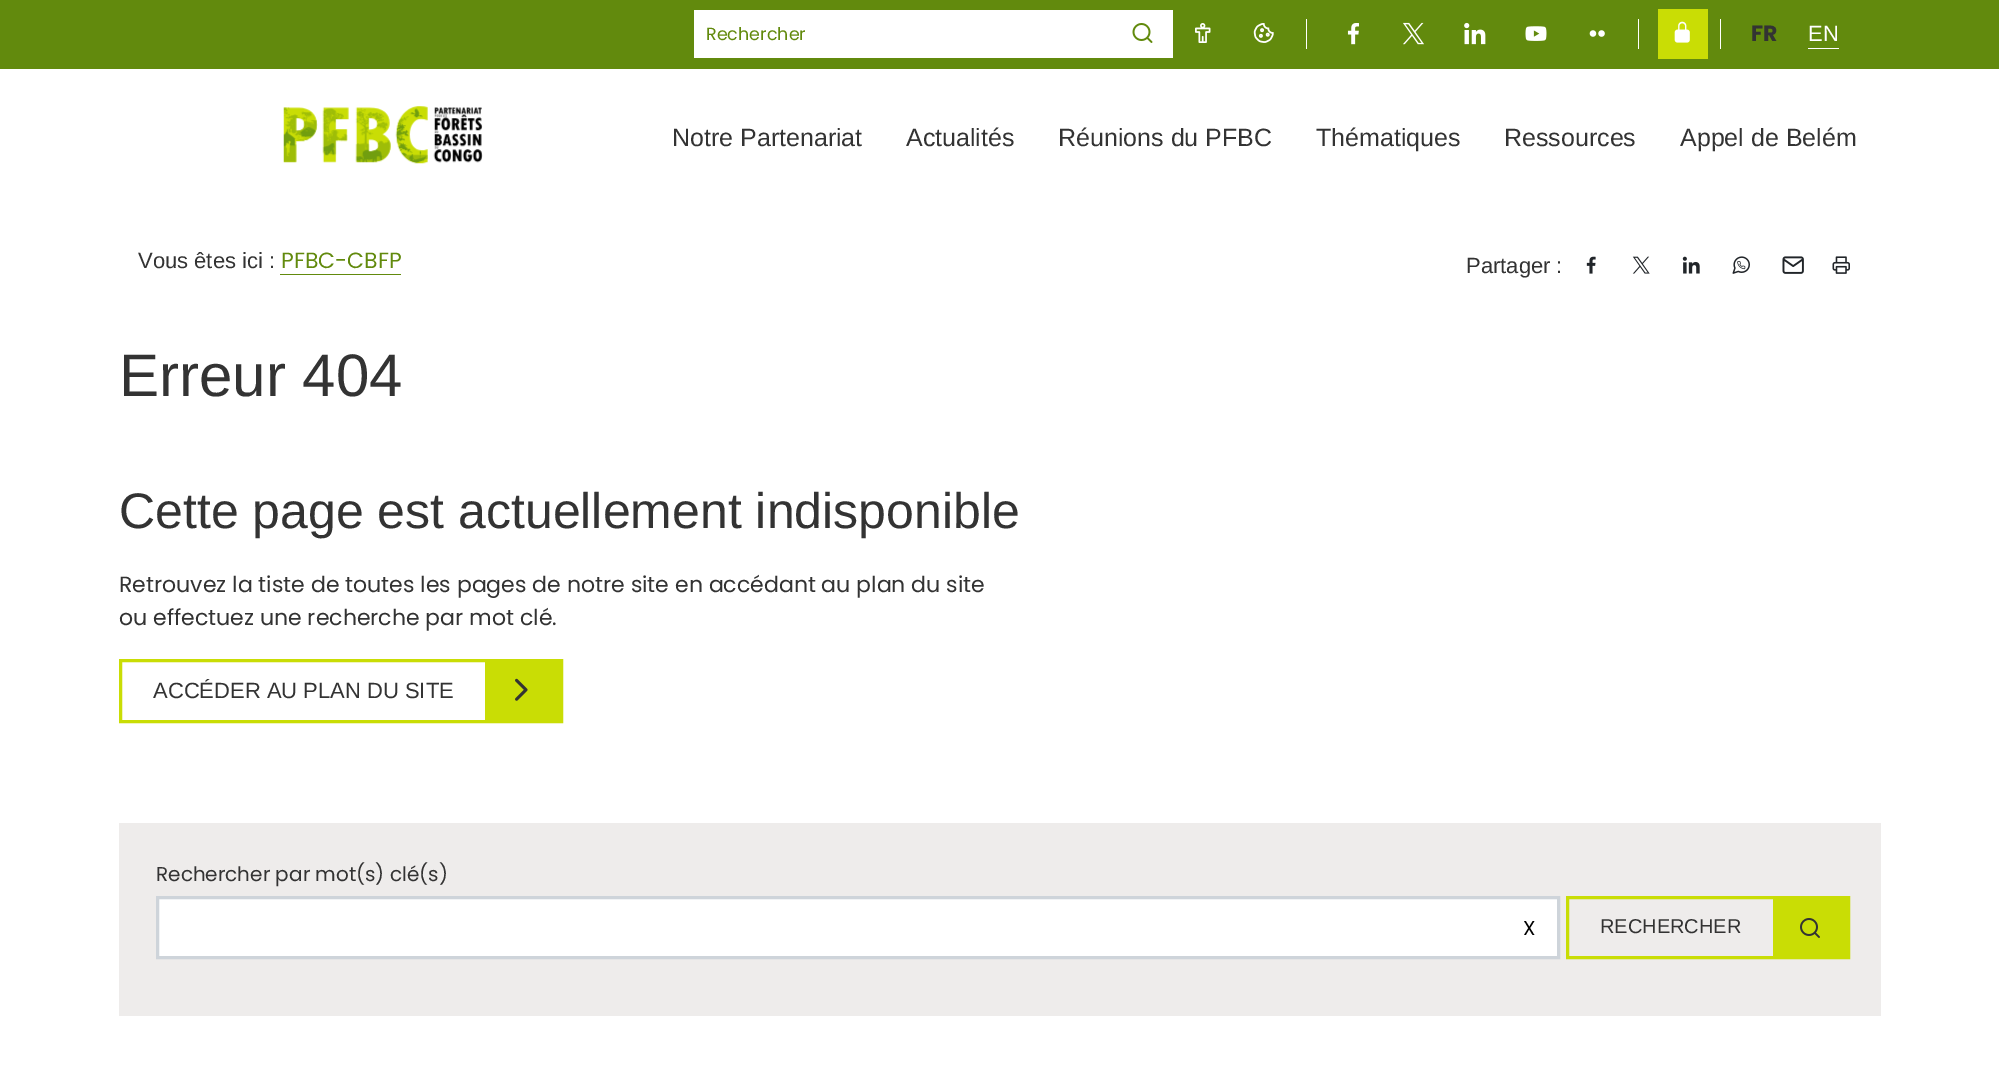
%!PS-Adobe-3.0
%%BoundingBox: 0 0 1999 1069
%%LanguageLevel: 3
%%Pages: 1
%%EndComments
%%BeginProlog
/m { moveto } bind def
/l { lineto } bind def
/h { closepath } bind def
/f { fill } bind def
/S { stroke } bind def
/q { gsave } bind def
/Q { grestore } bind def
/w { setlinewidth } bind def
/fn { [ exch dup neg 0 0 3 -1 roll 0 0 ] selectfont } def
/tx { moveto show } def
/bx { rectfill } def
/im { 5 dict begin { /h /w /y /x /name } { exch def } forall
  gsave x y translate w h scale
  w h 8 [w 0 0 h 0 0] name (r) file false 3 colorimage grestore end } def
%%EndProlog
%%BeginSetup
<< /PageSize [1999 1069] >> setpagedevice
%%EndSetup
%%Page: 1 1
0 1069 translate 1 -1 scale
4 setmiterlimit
1 setgray
0 0 1999 1069 bx
0.384 0.541 0.051 setrgbcolor
0 0 1999 69 bx
1 setgray
694 10 479 48 bx
/Poppins-Regular 17.5 fn
0.384 0.541 0.051 setrgbcolor
(Rechercher) 706 40 tx
(image0.raw) 1132 23 21 20 im
(image1.raw) 1195 23 16 20 im
(image2.raw) 1253 23 21 20 im
1 setgray
1306 19 1 30 bx
(image3.raw) 1347 23 12 22 im
(image4.raw) 1403 22 21 23 im
(image5.raw) 1464 22 22 23 im
(image6.raw) 1525 26 22 15 im
(image7.raw) 1589 30 16 7 im
1638 19 1 30 bx
0.788 0.867 0.02 setrgbcolor
1658 9 50 50 bx
(image8.raw) 1674 21 16 22 im
1 setgray
1720 19 1 30 bx
/Poppins-Bold 22 fn
0.2 setgray
(FR) 1751 41 tx
/LiberationSans-Regular 22 fn
1 setgray
(EN) 1808 41 tx
1808 48 31 1 bx
(image9.raw) 283 106 200 58 im
/LiberationSans-Regular 25 fn
0.2 setgray
(Notre Partenariat) 672 146 tx
(Actualités) 906 146 tx
(Réunions du PFBC) 1058 146 tx
(Thématiques) 1316 146 tx
(Ressources) 1504 146 tx
(Appel de Belém) 1680 146 tx
/LiberationSans-Regular 22 fn
(Vous êtes ici :) 138 268 tx
/Poppins-Regular 22 fn
0.384 0.541 0.051 setrgbcolor
(PFBC-CBFP) 281 268 tx
280 274 121 1 bx
/LiberationSans-Regular 22 fn
0.2 setgray
(Partager :) 1466 273 tx
(image10.raw) 1586 256 10 18 im
(image11.raw) 1632 256 18 18 im
(image12.raw) 1682 256 18 18 im
(image13.raw) 1732 256 18 18 im
(image14.raw) 1782 256 22 18 im
(image15.raw) 1832 256 18 18 im
/LiberationSans-Regular 60 fn
(Erreur 404) 119 396 tx
/LiberationSans-Regular 50 fn
(Cette page est actuellement indisponible) 119 528 tx
/Poppins-Regular 22 fn
(Retrouvez la tiste de toutes les pages de notre site en accédant au plan du site) 119 592 tx
(ou effectuez une recherche par mot clé.) 119 625 tx
0.788 0.867 0.02 setrgbcolor
3 w
120.5 660.5 441 61 rectstroke
/LiberationSans-Regular 22 fn
0.2 setgray
(ACCÉDER AU PLAN DU SITE) 153 698 tx
0.788 0.867 0.02 setrgbcolor
485 662 75 58 bx
(image16.raw) 515 678 13 23 im
0.933 0.925 0.922 setrgbcolor
119 823 1762 193 bx
/Poppins-Regular 20 fn
0.2 setgray
(Rechercher par mot\(s\) clé\(s\)) 156 881 tx
1 setgray
157.5 897.5 m 1558.5 897.5 l 1558.5 957.5 l 157.5 957.5 l h q f Q
0.808 0.831 0.855 setrgbcolor
S
0 setgray
(X) 1523 935 tx
0.788 0.867 0.02 setrgbcolor
1567.5 897.5 281 60 rectstroke
/LiberationSans-Regular 20 fn
0.2 setgray
(RECHERCHER) 1600 933 tx
0.788 0.867 0.02 setrgbcolor
1773 899 74 57 bx
(image17.raw) 1800 918 20 20 im
showpage
%%EOF
